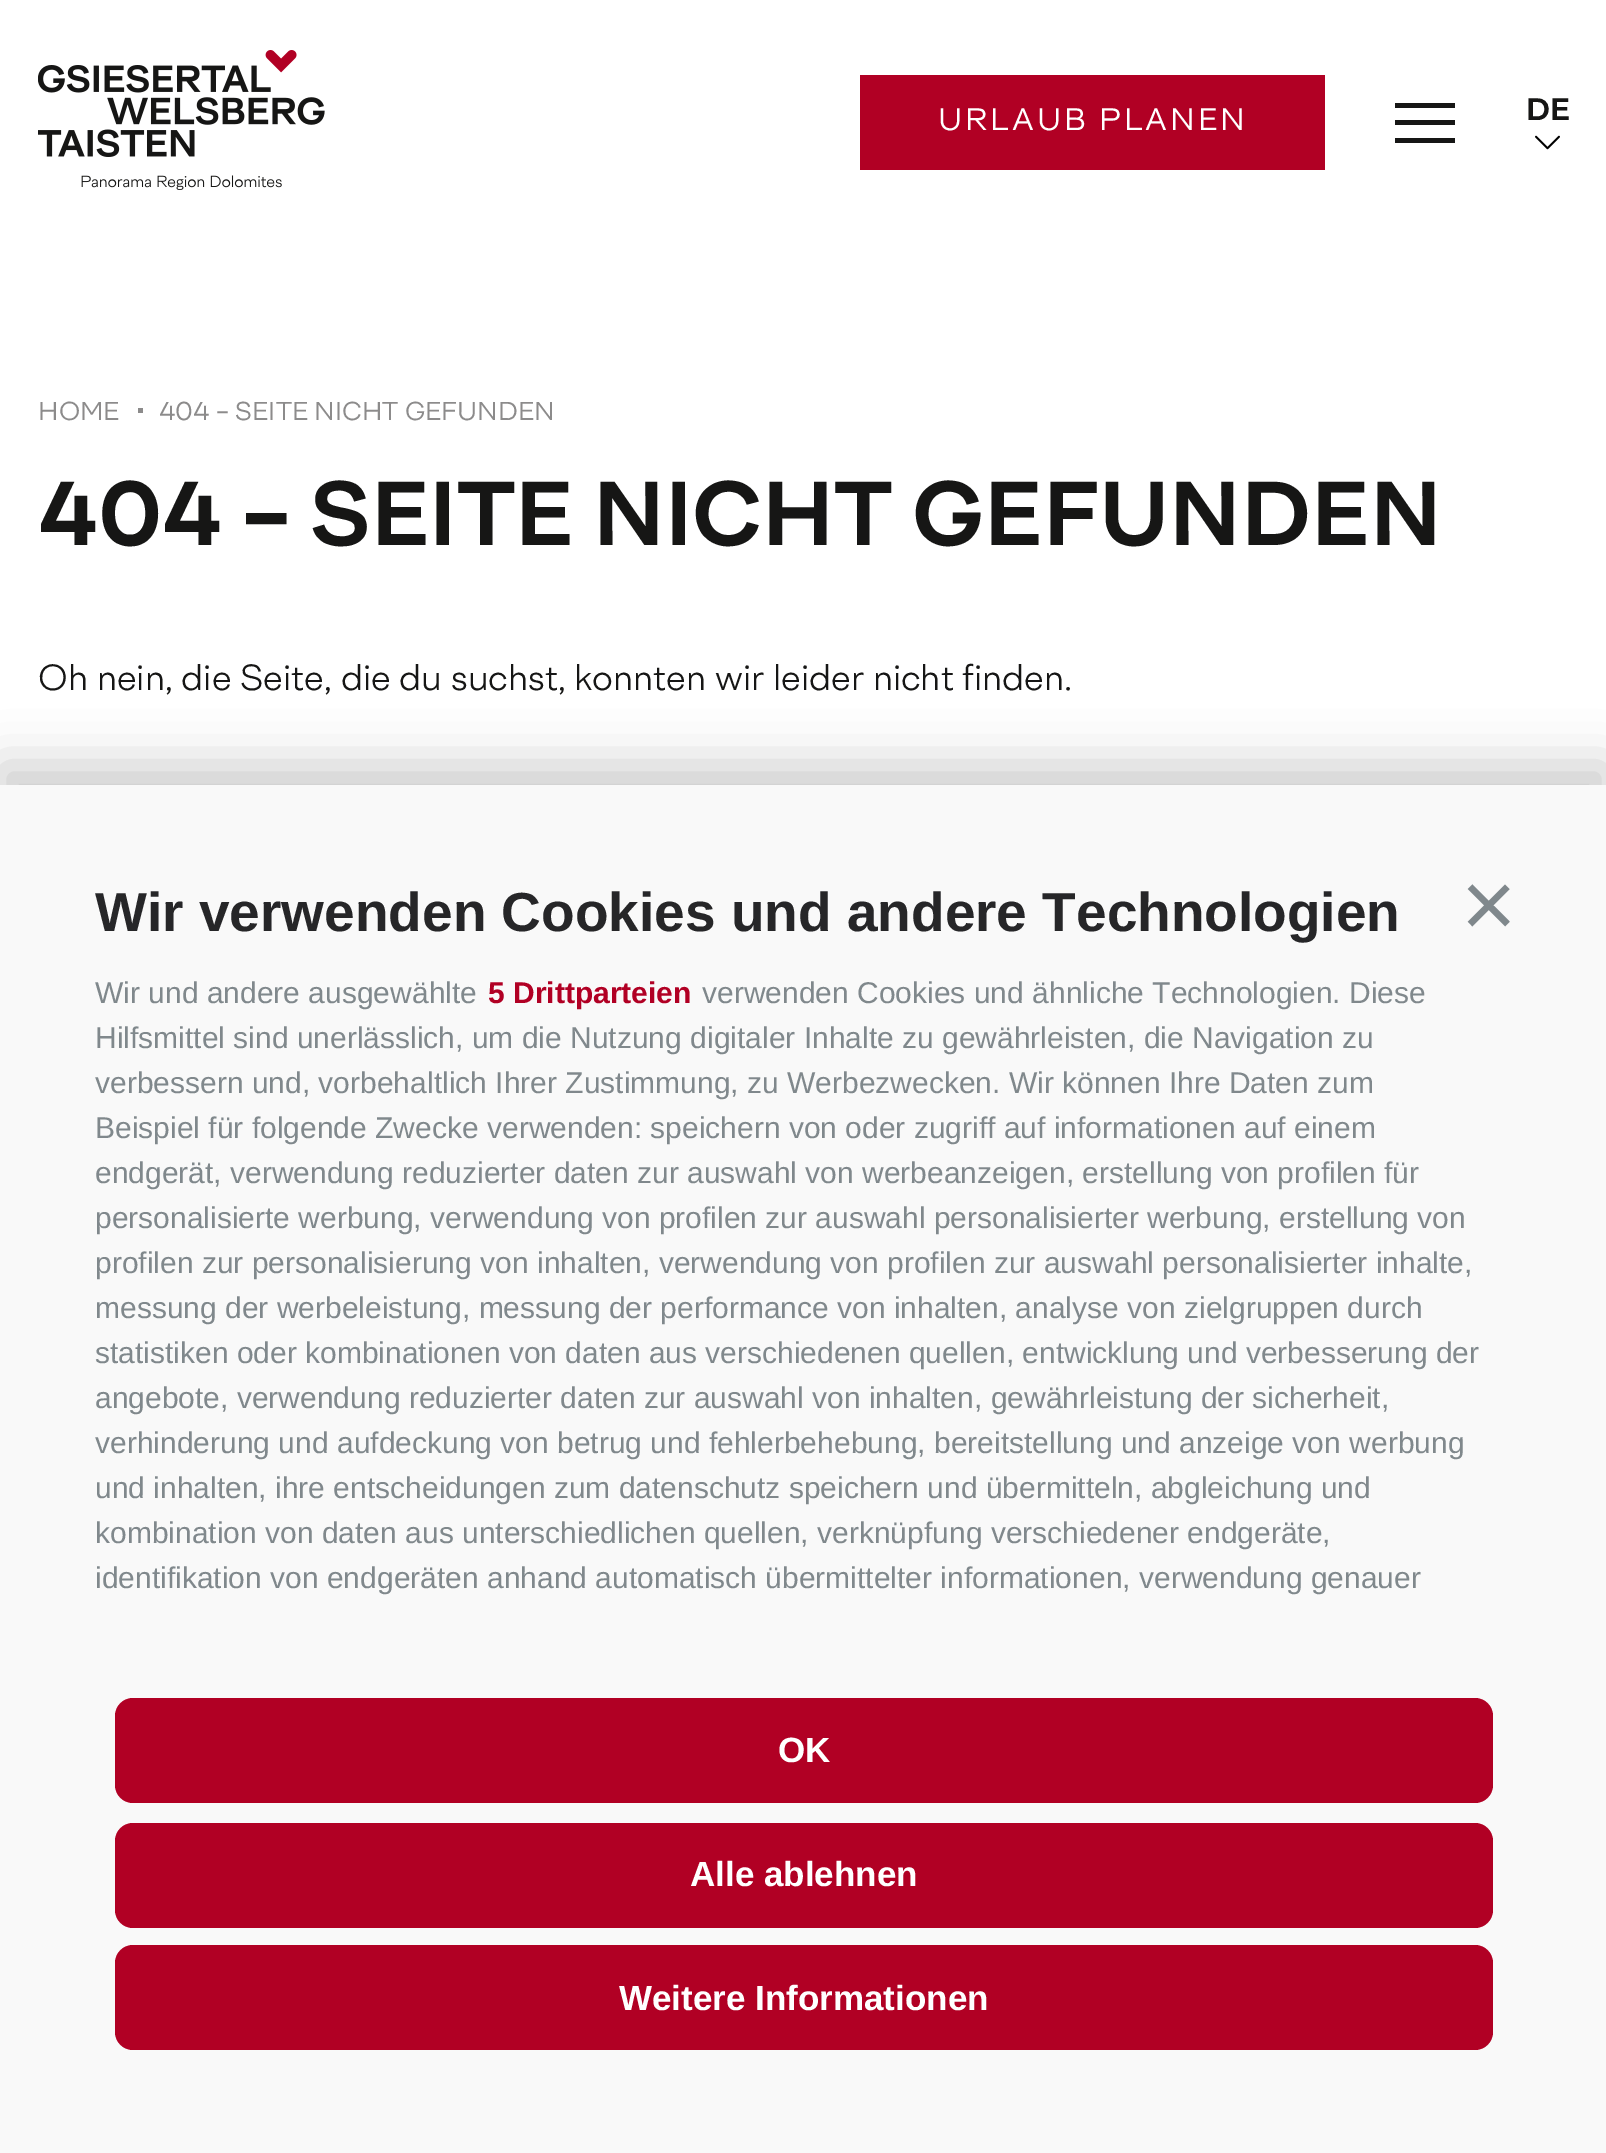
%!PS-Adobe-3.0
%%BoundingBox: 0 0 1606 2153
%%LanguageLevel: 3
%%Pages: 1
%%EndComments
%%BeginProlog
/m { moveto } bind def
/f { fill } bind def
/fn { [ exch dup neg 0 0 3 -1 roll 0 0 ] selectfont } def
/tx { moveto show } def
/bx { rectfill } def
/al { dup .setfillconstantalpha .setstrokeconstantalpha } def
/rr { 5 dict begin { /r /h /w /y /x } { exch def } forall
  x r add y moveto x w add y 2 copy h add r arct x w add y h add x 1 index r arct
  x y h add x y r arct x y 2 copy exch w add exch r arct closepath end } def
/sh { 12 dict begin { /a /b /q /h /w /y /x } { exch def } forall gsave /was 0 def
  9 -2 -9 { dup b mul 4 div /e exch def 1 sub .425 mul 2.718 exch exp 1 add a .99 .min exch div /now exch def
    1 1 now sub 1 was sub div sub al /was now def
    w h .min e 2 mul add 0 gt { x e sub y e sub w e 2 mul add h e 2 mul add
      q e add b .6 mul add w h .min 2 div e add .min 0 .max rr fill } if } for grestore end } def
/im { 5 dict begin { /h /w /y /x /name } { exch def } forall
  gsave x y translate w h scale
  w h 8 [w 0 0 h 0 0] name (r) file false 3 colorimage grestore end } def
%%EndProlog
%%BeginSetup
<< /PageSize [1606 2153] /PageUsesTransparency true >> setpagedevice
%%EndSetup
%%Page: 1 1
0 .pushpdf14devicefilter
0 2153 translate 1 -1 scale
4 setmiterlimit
1 setgray
0 0 1606 2153 bx
(image0.raw) 38 50 287 140 im
0.694 0 0.141 setrgbcolor
860 75 465 95 bx
/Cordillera-Regular 30 fn
1 setgray
938 130 m 3 0 (URLAUB PLANEN) ashow
0.086 0.086 0.082 setrgbcolor
1395 103 60 5 bx
1395 120 60 5 bx
1395 138 60 5 bx
/Cordillera-Bold 30 fn
(DE) 1526 120 tx
(image1.raw) 1535 135 25 15 im
/Cordillera-Regular 25 fn
0.549 0.545 0.545 setrgbcolor
(HOME) 38 420 tx
138 408 5 5 bx
(404 - SEITE NICHT GEFUNDEN) 159 420 tx
/Cordillera-Bold 87.5 fn
0.086 0.086 0.082 setrgbcolor
(404 - SEITE NICHT GEFUNDEN) 38 545 tx
/Cordillera-Light 35 fn
(Oh nein, die Seite, die du suchst, konnten wir leider nicht finden.) 38 690 tx
0 setgray
0 765 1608 1370 0 25 0.2 sh
0.976 setgray
0 785 1606 1368 bx
/LiberationSans-Bold 55 fn
0.149 0.149 0.157 setrgbcolor
(Wir verwenden Cookies und andere Technologien) 95 931 tx
/LiberationSans-Regular 95 fn
0.502 0.533 0.549 setrgbcolor
(×) 1461 937 tx
/LiberationSans-Regular 30 fn
(Wir und andere ausgewählte) 95 1003 tx
/LiberationSans-Bold 30 fn
0.694 0 0.141 setrgbcolor
(5 Drittparteien) 488 1003 tx
/LiberationSans-Regular 30 fn
0.502 0.533 0.549 setrgbcolor
(verwenden Cookies und ähnliche Technologien. Diese) 702 1003 tx
(Hilfsmittel sind unerlässlich, um die Nutzung digitaler Inhalte zu gewährleisten, die Navigation zu) 95 1048 tx
(verbessern und, vorbehaltlich Ihrer Zustimmung, zu Werbezwecken. Wir können Ihre Daten zum) 95 1093 tx
(Beispiel für folgende Zwecke verwenden: speichern von oder zugriff auf informationen auf einem) 95 1138 tx
(endgerät, verwendung reduzierter daten zur auswahl von werbeanzeigen, erstellung von profilen für) 95 1183 tx
(personalisierte werbung, verwendung von profilen zur auswahl personalisierter werbung, erstellung von) 95 1228 tx
(profilen zur personalisierung von inhalten, verwendung von profilen zur auswahl personalisierter inhalte,) 95 1273 tx
(messung der werbeleistung, messung der performance von inhalten, analyse von zielgruppen durch) 95 1318 tx
(statistiken oder kombinationen von daten aus verschiedenen quellen, entwicklung und verbesserung der) 95 1363 tx
(angebote, verwendung reduzierter daten zur auswahl von inhalten, gewährleistung der sicherheit,) 95 1408 tx
(verhinderung und aufdeckung von betrug und fehlerbehebung, bereitstellung und anzeige von werbung) 95 1453 tx
(und inhalten, ihre entscheidungen zum datenschutz speichern und übermitteln, abgleichung und) 95 1498 tx
(kombination von daten aus unterschiedlichen quellen, verknüpfung verschiedener endgeräte,) 95 1543 tx
(identifikation von endgeräten anhand automatisch übermittelter informationen, verwendung genauer) 95 1588 tx
0.694 0 0.141 setrgbcolor
115 1698 1378 105 18 rr f
/LiberationSans-Bold 35 fn
1 setgray
(OK) 778 1762 tx
0.694 0 0.141 setrgbcolor
115 1823 1378 105 18 rr f
1 setgray
(Alle ablehnen) 690 1886 tx
0.694 0 0.141 setrgbcolor
115 1945 1378 105 18 rr f
1 setgray
(Weitere Informationen) 619 2010 tx
.poppdf14devicefilter showpage
%%EOF
